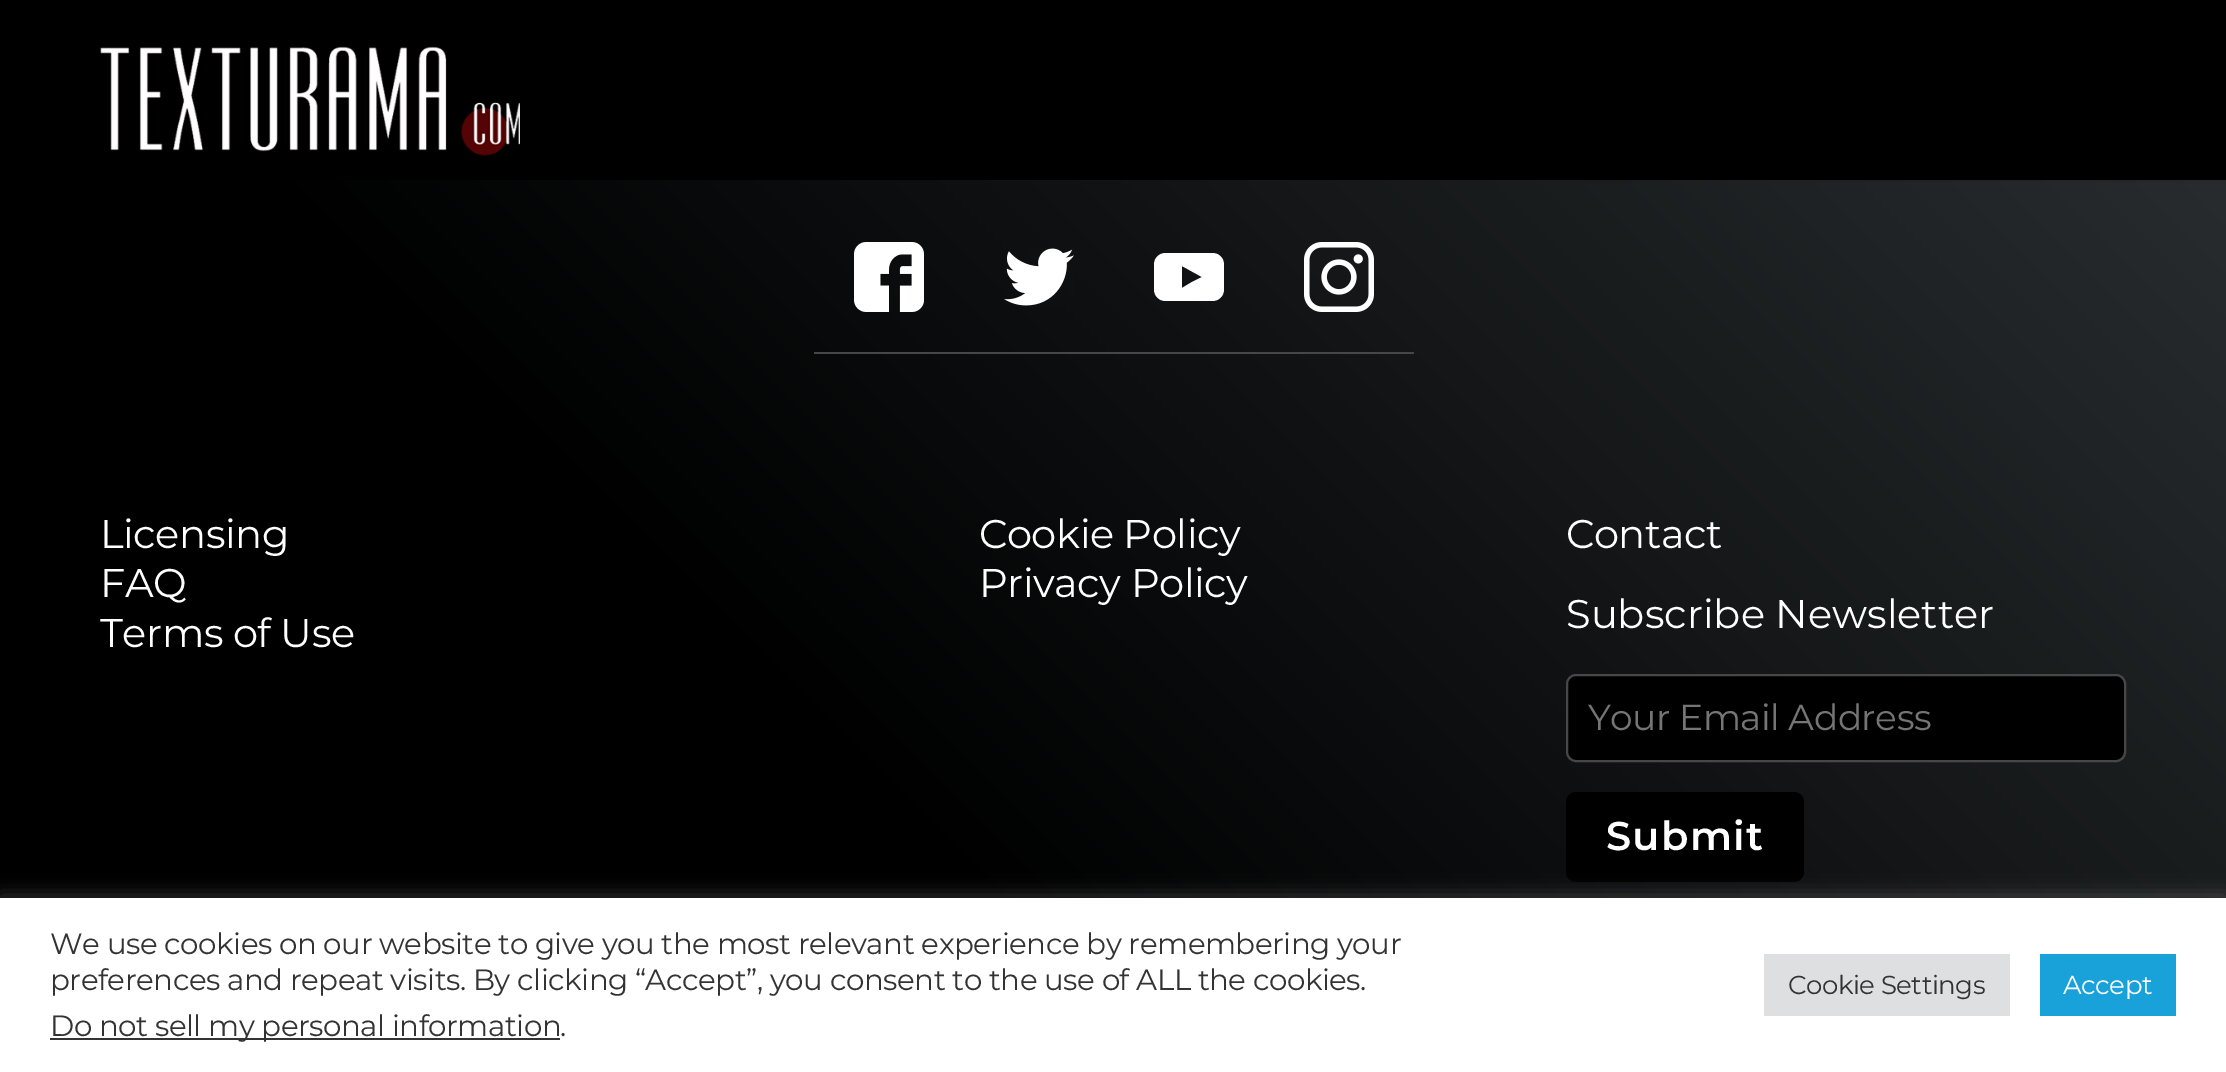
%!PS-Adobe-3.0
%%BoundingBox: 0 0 2226 1072
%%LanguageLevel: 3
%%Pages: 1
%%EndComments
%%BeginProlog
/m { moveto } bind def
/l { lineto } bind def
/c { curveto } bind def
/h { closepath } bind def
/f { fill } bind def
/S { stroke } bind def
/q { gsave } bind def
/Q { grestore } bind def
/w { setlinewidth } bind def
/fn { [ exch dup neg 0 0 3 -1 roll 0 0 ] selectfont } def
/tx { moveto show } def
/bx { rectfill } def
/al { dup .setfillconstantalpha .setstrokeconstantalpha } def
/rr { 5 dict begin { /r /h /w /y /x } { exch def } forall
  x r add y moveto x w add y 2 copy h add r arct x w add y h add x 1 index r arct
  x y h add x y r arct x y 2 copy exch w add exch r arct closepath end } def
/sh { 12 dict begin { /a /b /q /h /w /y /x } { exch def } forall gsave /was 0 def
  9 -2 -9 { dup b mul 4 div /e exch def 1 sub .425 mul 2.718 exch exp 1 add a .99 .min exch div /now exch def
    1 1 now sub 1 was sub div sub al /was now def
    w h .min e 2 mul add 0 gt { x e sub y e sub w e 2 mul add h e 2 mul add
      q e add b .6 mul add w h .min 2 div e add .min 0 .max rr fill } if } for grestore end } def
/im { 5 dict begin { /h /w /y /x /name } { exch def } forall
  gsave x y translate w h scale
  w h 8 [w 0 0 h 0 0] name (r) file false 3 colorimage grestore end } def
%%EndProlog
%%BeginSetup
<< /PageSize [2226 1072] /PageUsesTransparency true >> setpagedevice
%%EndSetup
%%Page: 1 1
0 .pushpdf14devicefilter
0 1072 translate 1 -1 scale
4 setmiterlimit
1 setgray
0 0 2226 1072 bx
q 0 180 m 2226 180 l 2226 898 l 0 898 l h clip newpath
<< /ShadingType 2 /ColorSpace /DeviceRGB /Coords [265 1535 1961 -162] /Extend [true true] /Function << /FunctionType 3 /Domain [0 1] /Functions [<< /FunctionType 2 /Domain [0 1] /C0 [0 0 0] /C1 [0 0 0] /N 1 >> << /FunctionType 2 /Domain [0 1] /C0 [0 0 0] /C1 [0.165 0.18 0.192] /N 1 >>] /Bounds [0.4] /Encode [0 1 0 1] >> >> shfill Q
0 setgray
0 0 2226 180 0 5 0.1 sh
0 0 2226 180 bx
(image0.raw) 100 46 420 110 im
0.278 setgray
814 352 600 2 bx
(image1.raw) 854 242 70 70 im
(image2.raw) 1004 248 70 58 im
1 setgray
1212 253 m 1166 253 l 1159 253 1154 258 1154 265 c 1154 289 l 1154 296 1159 301 1166 301 c 1212 301 l 1219 301 1224 296 1224 289 c 1224 265 l 1224 258 1219 253 1212 253 c h 1192 282 m 1182 288 l 1182 266 l 1202 277 l h f
(image3.raw) 1304 242 70 70 im
/Montserrat-Regular 40 fn
100 548 m -0.48 0 (Licensing) ashow
100 597 m -0.48 0 (FAQ) ashow
100 647 m -0.48 0 (Terms of Use) ashow
979 548 m -0.48 0 (Cookie Policy) ashow
979 597 m -0.48 0 (Privacy Policy) ashow
1566 548 m -0.48 0 (Contact) ashow
(Subscribe Newsletter) 1566 628 tx
0 setgray
1567 675 558 86 9 rr q f Q
0.278 setgray
2 w
S
/Montserrat-Regular 36 fn
0.459 setgray
1588 730 m -0.5 0 (Your Email Address) ashow
0 setgray
1566 792 238 90 10 rr f
/Montserrat-SemiBold 40 fn
1 setgray
1606 850 m 1.25 0 (Submit) ashow
0.675 0.671 0.671 setrgbcolor
0 896 2226 174 0 10 0.3 sh
1 setgray
0 898 2226 174 bx
/Montserrat-Regular 29.35 fn
0.2 setgray
50 954 m -0.48 0 (We use cookies on our website to give you the most relevant experience by remembering your) ashow
50 990 m -0.48 0 (preferences and repeat visits. By clicking “Accept”, you consent to the use of ALL the cookies.) ashow
50 1038 510 2 bx
50 1036 m -0.48 0 (Do not sell my personal information) ashow
560 1036 m -0.48 0 (.) ashow
0.871 0.875 0.878 setrgbcolor
1764 954 246 62 bx
/Montserrat-Regular 26 fn
0.2 setgray
1788 994 m -0.48 0 (Cookie Settings) ashow
0.094 0.635 0.851 setrgbcolor
2040 954 136 62 bx
1 setgray
2063 994 m -0.48 0 (Accept) ashow
.poppdf14devicefilter showpage
%%EOF
